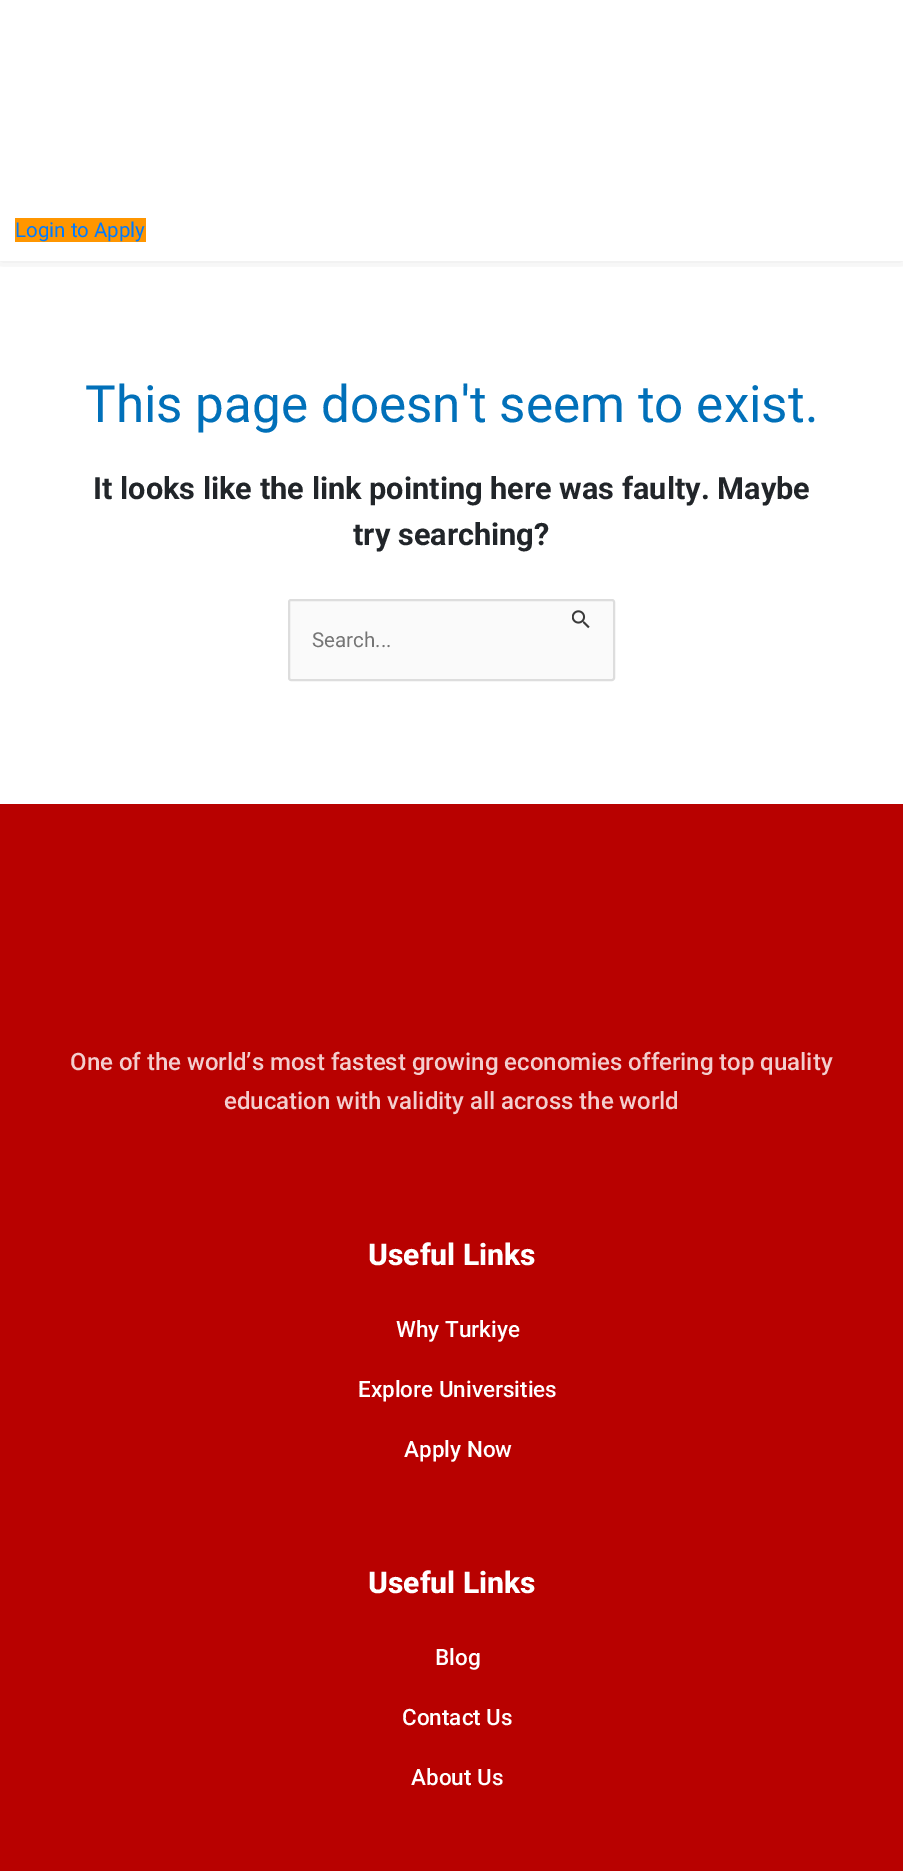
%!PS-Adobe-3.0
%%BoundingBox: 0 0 903 1871
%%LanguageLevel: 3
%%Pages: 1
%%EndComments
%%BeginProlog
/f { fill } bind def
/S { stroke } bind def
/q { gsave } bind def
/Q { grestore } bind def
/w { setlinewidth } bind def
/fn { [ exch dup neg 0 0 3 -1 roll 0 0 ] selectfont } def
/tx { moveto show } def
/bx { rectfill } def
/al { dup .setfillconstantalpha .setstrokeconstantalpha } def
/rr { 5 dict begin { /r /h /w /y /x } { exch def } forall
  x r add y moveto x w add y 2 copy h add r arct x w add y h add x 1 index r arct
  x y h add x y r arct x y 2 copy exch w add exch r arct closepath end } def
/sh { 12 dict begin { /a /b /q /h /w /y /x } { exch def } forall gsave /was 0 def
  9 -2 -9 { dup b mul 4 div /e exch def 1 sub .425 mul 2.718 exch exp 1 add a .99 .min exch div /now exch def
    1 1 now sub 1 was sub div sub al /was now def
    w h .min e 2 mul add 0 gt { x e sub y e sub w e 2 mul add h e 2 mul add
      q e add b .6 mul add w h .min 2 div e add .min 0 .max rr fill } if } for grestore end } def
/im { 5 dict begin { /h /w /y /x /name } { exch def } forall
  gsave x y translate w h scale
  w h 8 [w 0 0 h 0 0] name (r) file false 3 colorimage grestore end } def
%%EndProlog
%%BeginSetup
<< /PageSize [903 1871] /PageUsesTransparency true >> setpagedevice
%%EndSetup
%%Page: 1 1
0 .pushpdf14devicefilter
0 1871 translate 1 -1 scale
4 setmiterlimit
1 setgray
0 0 903 1871 bx
q
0 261 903 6 rectclip
0 setgray
0 0 903 261 0 7.5 0.1 sh
Q
1 0.588 0 setrgbcolor
15 218 131 24 bx
/Roboto-Regular 20.5 fn
0 0.482 1 setrgbcolor
(Login to Apply) 15 237 tx
/Roboto-Regular 51.25 fn
0.004 0.439 0.725 setrgbcolor
(This page doesn't seem to exist.) 85 422 tx
/Roboto-Bold 30.75 fn
0.129 0.145 0.161 setrgbcolor
(It looks like the link pointing here was faulty. Maybe) 93 499 tx
(try searching?) 353 545 tx
0.98 setgray
289 600 325 80 2 rr q f Q
0.867 setgray
2 w
S
(image0.raw) 572 610 18 19 im
/Roboto-Regular 20.5 fn
0.459 setgray
(Search...) 312 647 tx
0.722 0.004 0 setrgbcolor
0 804 903 1067 bx
/Roboto-Medium 24 fn
0.953 0.808 0.808 setrgbcolor
(One of the world’s most fastest growing economies offering top quality) 70 1070 tx
(education with validity all across the world) 224 1109 tx
/Roboto-ExtraBold 30 fn
1 setgray
(Useful Links) 368 1265 tx
/Roboto-Medium 22.5 fn
(Why Turkiye) 396 1337 tx
(Explore Universities) 358 1397 tx
(Apply Now) 404 1457 tx
/Roboto-ExtraBold 30 fn
(Useful Links) 368 1593 tx
/Roboto-Medium 22.5 fn
(Blog) 435 1665 tx
(Contact Us) 402 1725 tx
(About Us) 411 1785 tx
.poppdf14devicefilter showpage
%%EOF
